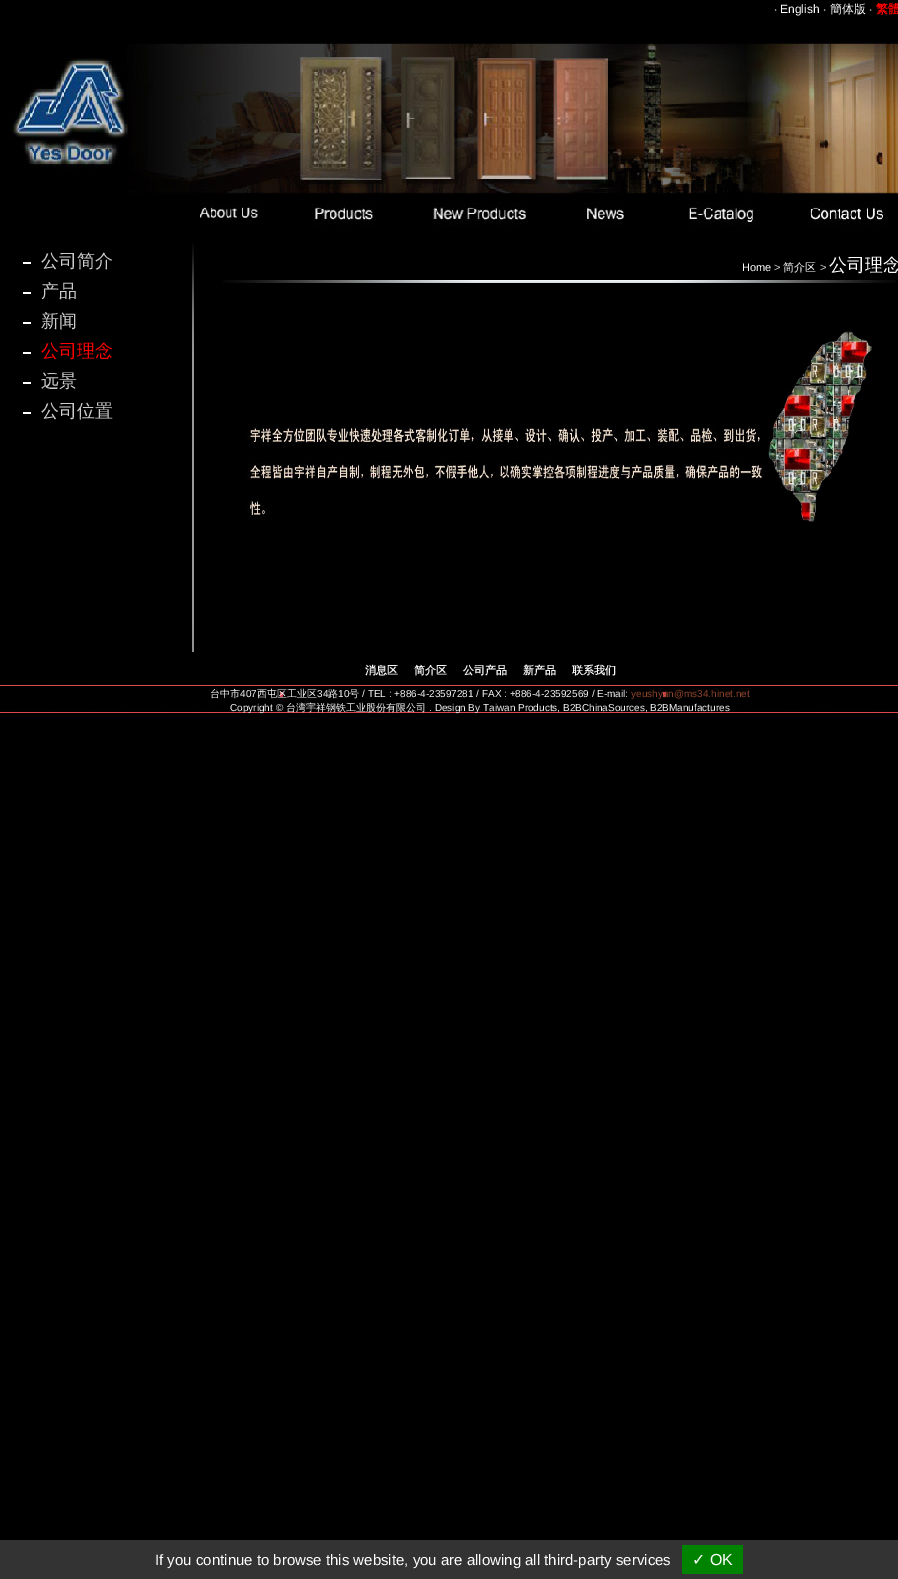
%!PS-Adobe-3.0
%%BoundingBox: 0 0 898 1579
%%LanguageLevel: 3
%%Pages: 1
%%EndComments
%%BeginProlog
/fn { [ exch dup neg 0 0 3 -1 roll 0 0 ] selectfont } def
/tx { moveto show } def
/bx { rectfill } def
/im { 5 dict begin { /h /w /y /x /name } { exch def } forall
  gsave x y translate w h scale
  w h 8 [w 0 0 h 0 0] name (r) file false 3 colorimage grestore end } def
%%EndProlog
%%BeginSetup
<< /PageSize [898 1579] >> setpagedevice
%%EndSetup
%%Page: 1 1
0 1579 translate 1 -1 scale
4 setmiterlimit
0 setgray
0 0 898 1579 bx
/NotoSans-Regular 12 fn
0.8 setgray
(‧) 774 13 tx
/LiberationSans-Regular 12 fn
1 setgray
(English) 780 13 tx
/NotoSans-Regular 12 fn
0.8 setgray
(‧) 823 13 tx
/WenQuanYiZenHei-Medium 12 fn
1 setgray
(簡体版) 830 13 tx
/NotoSans-Regular 12 fn
0.8 setgray
(‧) 869 13 tx
/WenQuanYiZenHei-Bold 12 fn
1 0 0 setrgbcolor
(繁體) 876 13 tx
(image0.raw) 9 42 889 184 im
(image1.raw) 192 243 2 409 im
1 setgray
23 262 8 2 bx
/WenQuanYiZenHei-Medium 18 fn
0.8 setgray
(公司简介) 41 267 tx
1 setgray
23 292 8 2 bx
0.8 setgray
(产品) 41 297 tx
1 setgray
23 322 8 2 bx
0.8 setgray
(新闻) 41 327 tx
1 setgray
23 352 8 2 bx
1 0 0 setrgbcolor
(公司理念) 41 357 tx
1 setgray
23 382 8 2 bx
0.8 setgray
(远景) 41 387 tx
1 setgray
23 412 8 2 bx
0.8 setgray
(公司位置) 41 417 tx
(image2.raw) 223 280 673 3 im
/LiberationSans-Regular 11 fn
1 setgray
(Home) 742 271 tx
0.8 setgray
(>) 774 271 tx
/WenQuanYiZenHei-Medium 11 fn
1 setgray
(简介区) 783 271 tx
/LiberationSans-Regular 11 fn
0.8 setgray
(>) 820 271 tx
/WenQuanYiZenHei-Medium 18 fn
1 setgray
(公司理念) 829 271 tx
(image3.raw) 247 423 517 96 im
(image4.raw) 768 331 104 191 im
/WenQuanYiZenHei-Bold 11 fn
0.961 setgray
(消息区) 365 674 tx
(简介区) 414 674 tx
(公司产品) 463 674 tx
(新产品) 523 674 tx
(联系我们) 572 674 tx
(image5.raw) 0 685 898 28 im
/WenQuanYiZenHei-Medium 10 fn
(台中市) 210 697 tx
/LiberationSans-Regular 10 fn
(407) 240 697 tx
/WenQuanYiZenHei-Medium 10 fn
(西屯区工业区) 257 697 tx
/LiberationSans-Regular 10 fn
(34) 317 697 tx
/WenQuanYiZenHei-Medium 10 fn
(路) 328 697 tx
/LiberationSans-Regular 10 fn
(10) 338 697 tx
/WenQuanYiZenHei-Medium 10 fn
(号) 349 697 tx
/LiberationSans-Regular 10 fn
(/ TEL : +886-4-23597281 / FAX : +886-4-23592569 / E-mail:) 362 697 tx
0.561 0.267 0.176 setrgbcolor
(yeushyan@ms34.hinet.net) 631 697 tx
0.961 setgray
(Copyright ©) 230 711 tx
/WenQuanYiZenHei-Medium 10 fn
(台湾宇祥钢铁工业股份有限公司) 286 711 tx
/LiberationSans-Regular 10 fn
(. Design By Taiwan Products, B2BChinaSources, B2BManufactures) 429 711 tx
0.2 setgray
0 1540 898 39 bx
/LiberationSans-Regular 15 fn
1 setgray
(If you continue to browse this website, you are allowing all third-party services) 155 1565 tx
0 0.514 0 setrgbcolor
682 1545 61 29 bx
/DejaVuSans-Regular 16 fn
1 setgray
(✓) 692 1565 tx
/LiberationSans-Regular 16 fn
(OK) 710 1565 tx
showpage
%%EOF
